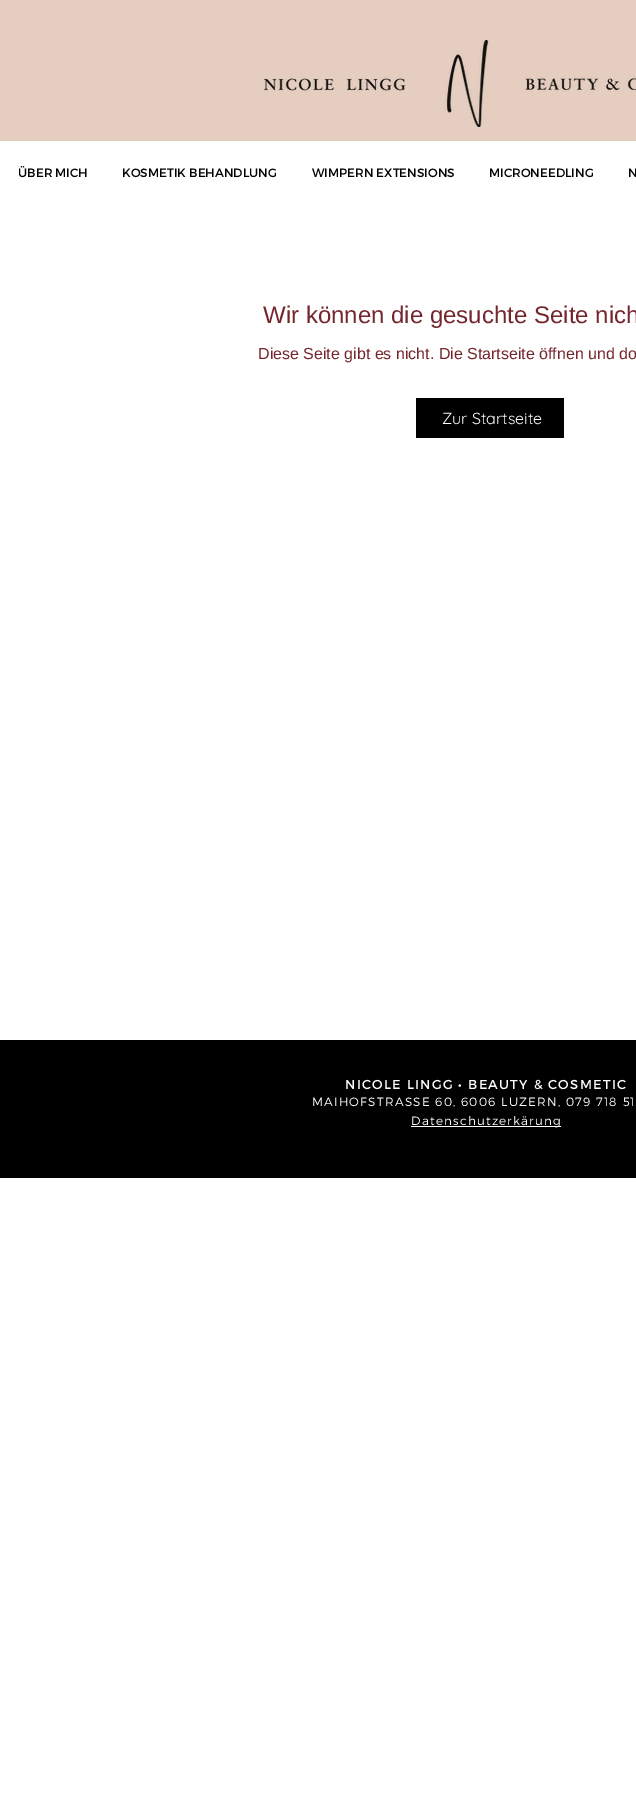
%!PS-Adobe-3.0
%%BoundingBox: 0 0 636 1813
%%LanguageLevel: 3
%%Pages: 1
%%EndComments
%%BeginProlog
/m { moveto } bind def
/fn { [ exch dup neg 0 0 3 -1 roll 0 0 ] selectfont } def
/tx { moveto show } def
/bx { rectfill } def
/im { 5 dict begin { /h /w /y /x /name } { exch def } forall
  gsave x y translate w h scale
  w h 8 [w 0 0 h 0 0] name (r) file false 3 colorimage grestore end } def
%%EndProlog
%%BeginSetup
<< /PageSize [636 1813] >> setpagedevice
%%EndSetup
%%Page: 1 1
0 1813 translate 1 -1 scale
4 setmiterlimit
1 setgray
0 0 636 1813 bx
0.898 0.804 0.753 setrgbcolor
0 0 636 141 bx
(image0.raw) 264 40 372 87 im
/Montserrat-Regular 12 fn
0 setgray
(ÜBER MICH) 18 177 tx
(KOSMETIK BEHANDLUNG) 122 177 tx
(WIMPERN EXTENSIONS) 312 177 tx
(MICRONEEDLING) 489 177 tx
(N) 628 177 tx
/LiberationSans-Regular 24 fn
0.455 0.149 0.173 setrgbcolor
(Wir können die gesuchte Seite nich) 263 323 tx
/LiberationSans-Regular 16 fn
(Diese Seite gibt es nicht. Die Startseite öffnen und do) 258 359 tx
0 setgray
416 398 148 40 bx
/Quicksand-Regular 16 fn
1 setgray
(Zur Startseite) 442 424 tx
0 setgray
0 1040 636 138 bx
/Montserrat-Regular 13 fn
1 setgray
345 1089 m 1.3 0 (NICOLE LINGG ∙ BEAUTY & COSMETIC) ashow
/Montserrat-Light 12 fn
312 1106 m 1.2 0 (MAIHOFSTRASSE 60, 6006 LUZERN, 079 718 51) ashow
411 1126 150 1 bx
411 1125 m 1.2 0 (Datenschutzerkärung) ashow
showpage
%%EOF
